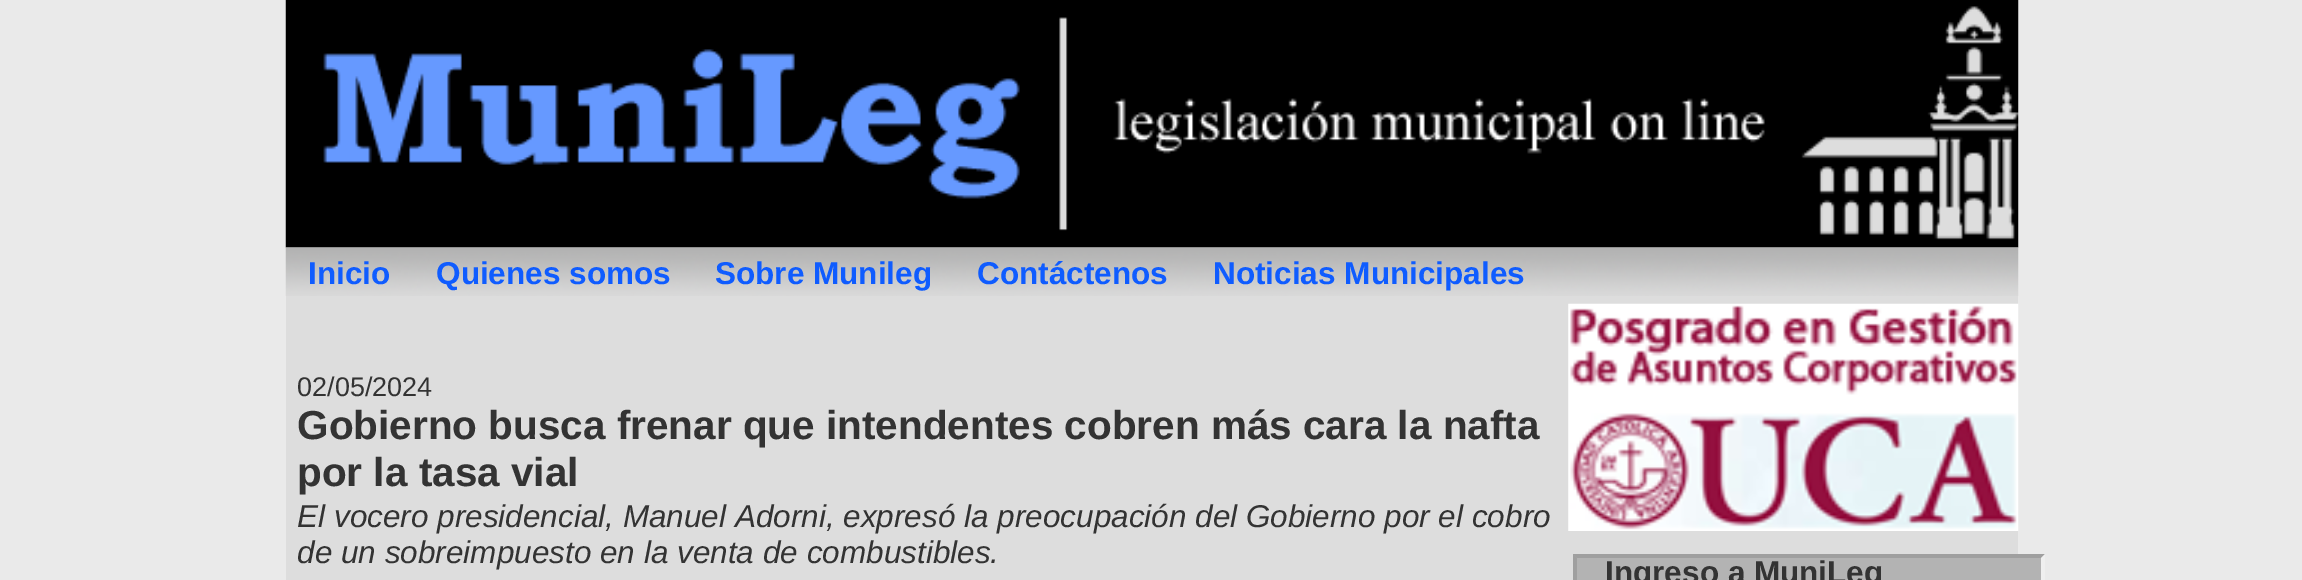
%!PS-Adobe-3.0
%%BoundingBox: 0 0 2302 580
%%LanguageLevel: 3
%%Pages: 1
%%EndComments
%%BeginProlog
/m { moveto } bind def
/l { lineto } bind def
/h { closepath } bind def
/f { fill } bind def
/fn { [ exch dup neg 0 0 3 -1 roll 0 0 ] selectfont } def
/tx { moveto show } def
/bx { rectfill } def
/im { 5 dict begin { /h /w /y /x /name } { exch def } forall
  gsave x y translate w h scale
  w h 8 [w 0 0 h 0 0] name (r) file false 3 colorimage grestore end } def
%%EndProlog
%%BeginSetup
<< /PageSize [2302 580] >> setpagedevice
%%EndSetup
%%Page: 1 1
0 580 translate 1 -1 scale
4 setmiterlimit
0.918 setgray
0 0 2302 580 bx
0.867 setgray
286 247 1732 333 bx
(image0.raw) 285 0 1734 248 im
(image1.raw) 285 247 1734 49 im
/LiberationSans-Bold 31.5 fn
0.059 0.361 1 setrgbcolor
(Inicio) 308 284 tx
(Quienes somos) 436 284 tx
(Sobre Munileg) 715 284 tx
(Contáctenos) 977 284 tx
(Noticias Municipales) 1213 284 tx
/LiberationSans-Regular 27 fn
0.2 setgray
(02/05/2024) 297 396 tx
/LiberationSans-Bold 40.5 fn
(Gobierno busca frenar que intendentes cobren más cara la nafta) 297 439 tx
(por la tasa vial) 297 486 tx
/LiberationSans-Italic 31.5 fn
(El vocero presidencial, Manuel Adorni, expresó la preocupación del Gobierno por el cobro) 297 527 tx
(de un sobreimpuesto en la venta de combustibles.) 297 563 tx
(image2.raw) 1568 303 451 228 im
0.702 setgray
1573 554 472 26 bx
0.624 setgray
1573 554 m 2045 554 l 2041 558 l 1577 558 l h f
0.937 setgray
2045 554 m 2045 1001 l 2041 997 l 2041 558 l h f
0.624 setgray
1573 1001 m 1573 554 l 1577 558 l 1577 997 l h f
/LiberationSans-Bold 31.5 fn
0.2 setgray
(Ingreso a MuniLeg) 1605 583 tx
showpage
%%EOF
